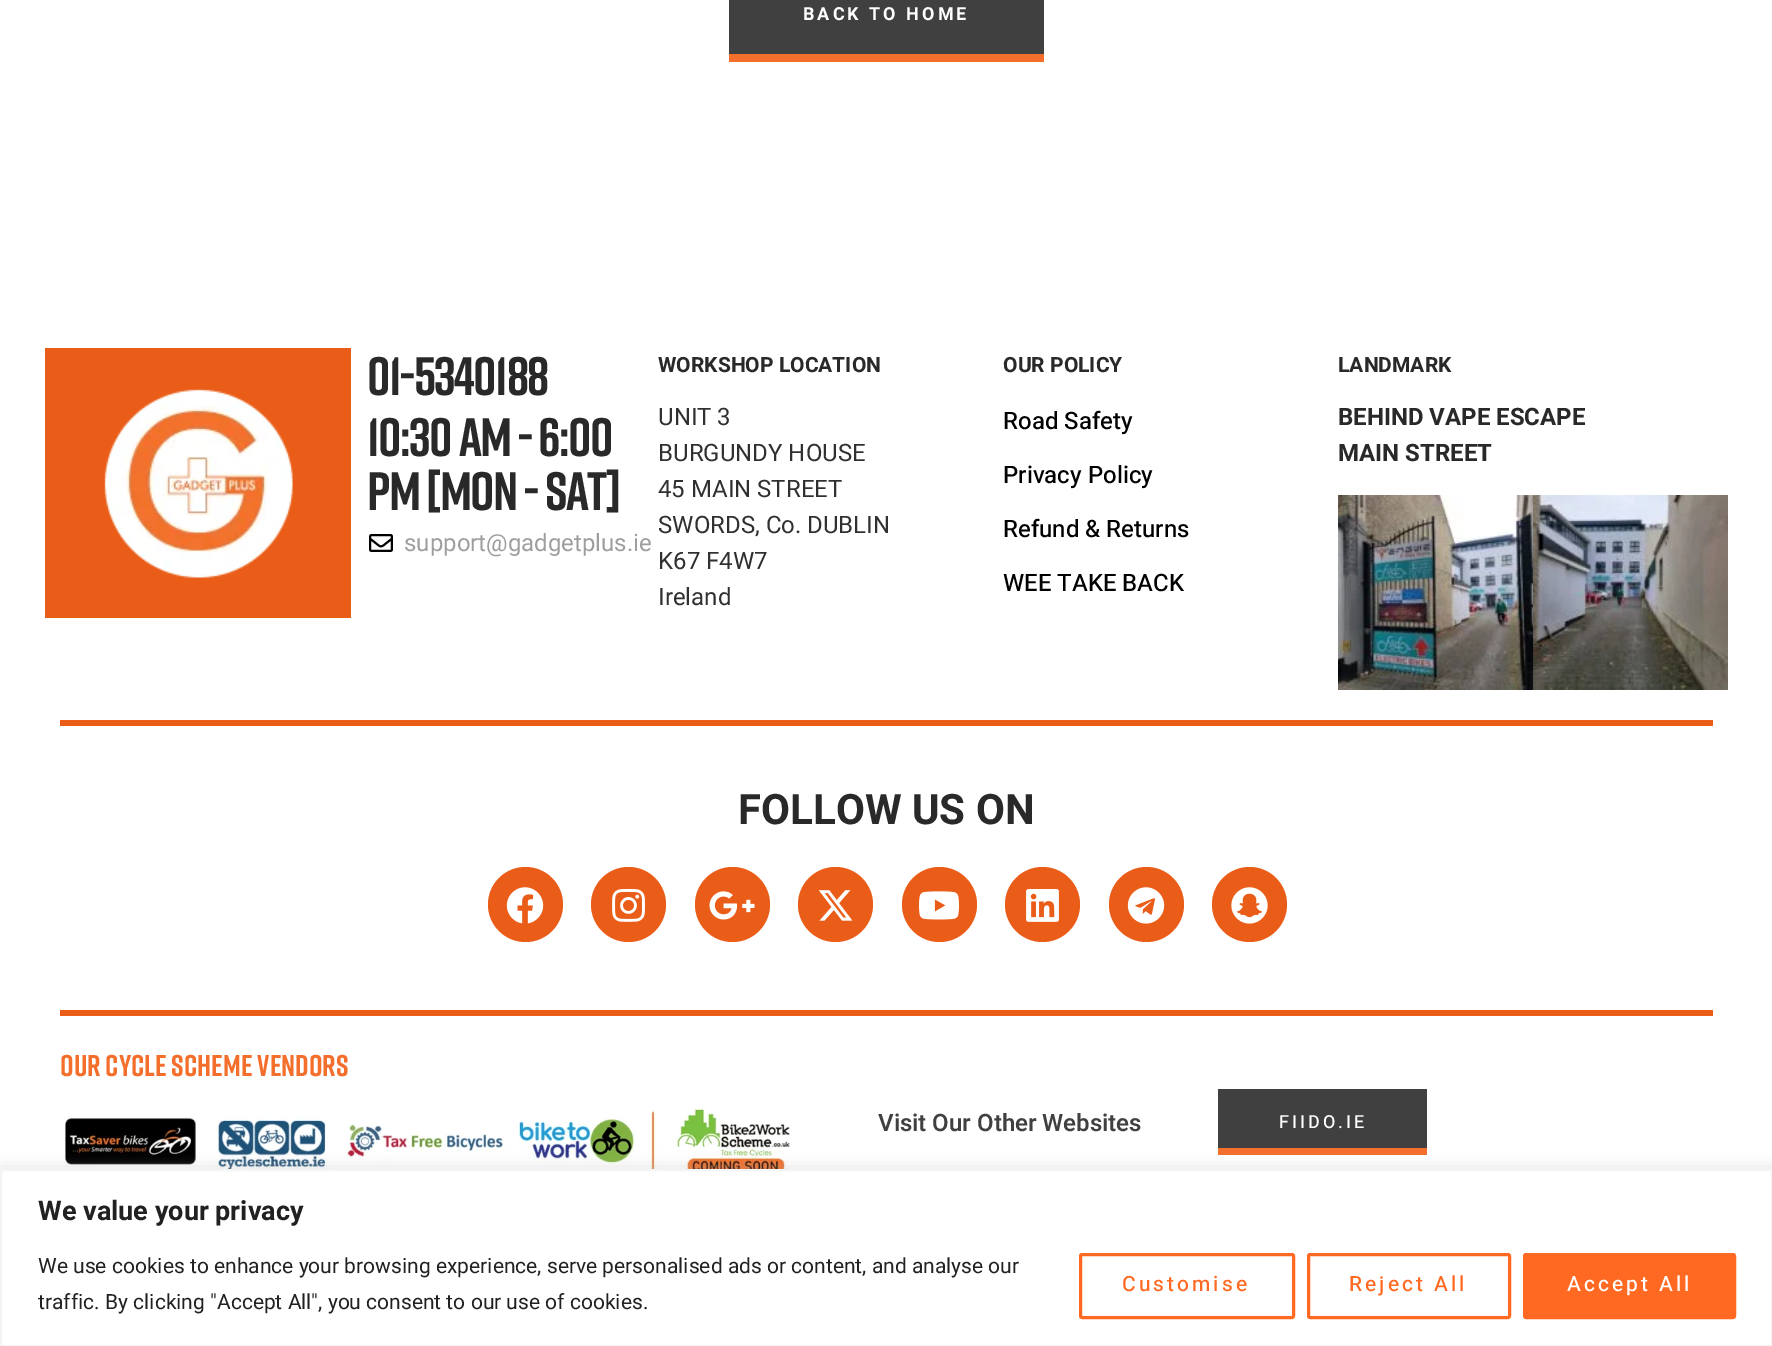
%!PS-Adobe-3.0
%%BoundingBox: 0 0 1772 1346
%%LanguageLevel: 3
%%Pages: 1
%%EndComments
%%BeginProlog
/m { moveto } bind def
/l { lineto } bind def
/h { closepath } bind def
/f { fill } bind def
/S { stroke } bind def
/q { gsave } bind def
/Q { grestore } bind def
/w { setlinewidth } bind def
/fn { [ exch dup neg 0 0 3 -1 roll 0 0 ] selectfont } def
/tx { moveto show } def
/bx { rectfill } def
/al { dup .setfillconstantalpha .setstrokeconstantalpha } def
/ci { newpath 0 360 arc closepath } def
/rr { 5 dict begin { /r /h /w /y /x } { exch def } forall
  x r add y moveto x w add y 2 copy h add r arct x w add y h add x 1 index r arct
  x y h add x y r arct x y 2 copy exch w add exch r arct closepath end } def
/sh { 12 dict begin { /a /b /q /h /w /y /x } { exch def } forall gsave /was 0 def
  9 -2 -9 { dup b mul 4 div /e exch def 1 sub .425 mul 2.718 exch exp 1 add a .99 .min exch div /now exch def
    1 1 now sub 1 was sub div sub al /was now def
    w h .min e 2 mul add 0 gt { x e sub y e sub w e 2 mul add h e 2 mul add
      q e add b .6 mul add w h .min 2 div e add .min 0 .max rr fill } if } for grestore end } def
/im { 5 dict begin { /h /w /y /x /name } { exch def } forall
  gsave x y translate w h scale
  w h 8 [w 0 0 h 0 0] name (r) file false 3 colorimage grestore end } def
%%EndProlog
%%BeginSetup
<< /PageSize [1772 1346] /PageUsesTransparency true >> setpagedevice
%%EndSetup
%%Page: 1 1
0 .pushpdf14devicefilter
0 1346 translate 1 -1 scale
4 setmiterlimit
1 setgray
0 0 1772 1346 bx
0.251 setgray
729 0 315 54 bx
/Heebo-Bold 18 fn
1 setgray
803 20 m 3 0 (BACK TO HOME) ashow
0.957 0.435 0.173 setrgbcolor
729 54 315 8 bx
0.918 0.365 0.098 setrgbcolor
45 348 306 270 bx
(image0.raw) 104 389 189 189 im
/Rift-Bold 54 fn
0.161 setgray
367 395 m -1.5 0 (01-5340188) ashow
367 456 m -1.5 0 (10:30 AM - 6:00) ashow
367 510 m -1.5 0 (PM [MON - SAT]) ashow
(image1.raw) 369 534 24 18 im
/Heebo-Regular 24 fn
0.62 setgray
(support@gadgetplus.ie) 404 551 tx
/Heebo-Bold 21 fn
0.161 setgray
(WORKSHOP LOCATION) 658 372 tx
/Heebo-Regular 24 fn
0.188 setgray
(UNIT 3) 658 425 tx
(BURGUNDY HOUSE) 658 461 tx
(45 MAIN STREET) 658 497 tx
(SWORDS, Co. DUBLIN) 658 533 tx
(K67 F4W7) 658 569 tx
(Ireland) 658 605 tx
/Heebo-Bold 21 fn
0.161 setgray
(OUR POLICY) 1003 372 tx
/Heebo-Medium 24 fn
0 setgray
(Road Safety) 1003 429 tx
(Privacy Policy) 1003 483 tx
(Refund & Returns) 1003 537 tx
(WEE TAKE BACK) 1003 591 tx
/Heebo-Bold 21 fn
0.161 setgray
(LANDMARK) 1338 372 tx
/Heebo-Bold 24 fn
(BEHIND VAPE ESCAPE) 1338 425 tx
(MAIN STREET) 1338 461 tx
(image2.raw) 1338 495 195 195 im
(image3.raw) 1533 495 195 195 im
0.918 0.365 0.098 setrgbcolor
60 720 1653 6 bx
/Heebo-Bold 42 fn
0.161 setgray
(FOLLOW US ON) 738 824 tx
0.918 0.365 0.098 setrgbcolor
525.5 904.5 37.5 ci f
(image4.raw) 506 887 38 37 im
628.5 904.5 37.5 ci f
(image5.raw) 612 888 33 34 im
732.5 904.5 37.5 ci f
(image6.raw) 709 891 46 29 im
835.5 904.5 37.5 ci f
(image7.raw) 818 890 35 31 im
939.5 904.5 37.5 ci f
(image8.raw) 919 891 40 29 im
1042.5 904.5 37.5 ci f
(image9.raw) 1026 889 33 33 im
1146.5 904.5 37.5 ci f
(image10.raw) 1127 887 38 37 im
1249.5 904.5 37.5 ci f
(image11.raw) 1231 887 37 37 im
60 1010 1653 6 bx
/Rift-Bold 30 fn
0.957 0.435 0.173 setrgbcolor
(OUR CYCLE SCHEME VENDORS) 60 1076 tx
(image12.raw) 65 1107 725 62 im
/Heebo-SemiBold 24 fn
0.251 setgray
(Visit Our Other Websites) 878 1131 tx
1218 1089 209 59 bx
/Heebo-Medium 18 fn
1 setgray
1279 1128 m 3 0 (FIIDO.IE) ashow
0.957 0.435 0.173 setrgbcolor
1218 1148 209 7 bx
0.675 0.671 0.671 setrgbcolor
0 1167 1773 179 0 7.5 0.3 sh
1 setgray
1 1170 m 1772 1170 l 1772 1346 l 1 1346 l h q f Q
0.957 setgray
2 w
S
/Heebo-Bold 27 fn
0.129 setgray
(We value your privacy) 38 1220 tx
/Heebo-Regular 21 fn
(We use cookies to enhance your browsing experience, serve personalised ads or content, and analyse our) 38 1273 tx
(traffic. By clicking "Accept All", you consent to our use of cookies.) 38 1309 tx
1 0.412 0.129 setrgbcolor
3 w
1080.5 1254.5 213 63 1.5 rr S
/Heebo-Medium 21 fn
1122 1291 m 3 0 (Customise) ashow
1308.5 1254.5 201 63 1.5 rr S
1349 1291 m 3 0 (Reject All) ashow
1524.5 1254.5 210 63 1.5 rr q f Q
S
1 setgray
1567 1291 m 3 0 (Accept All) ashow
.poppdf14devicefilter showpage
%%EOF
